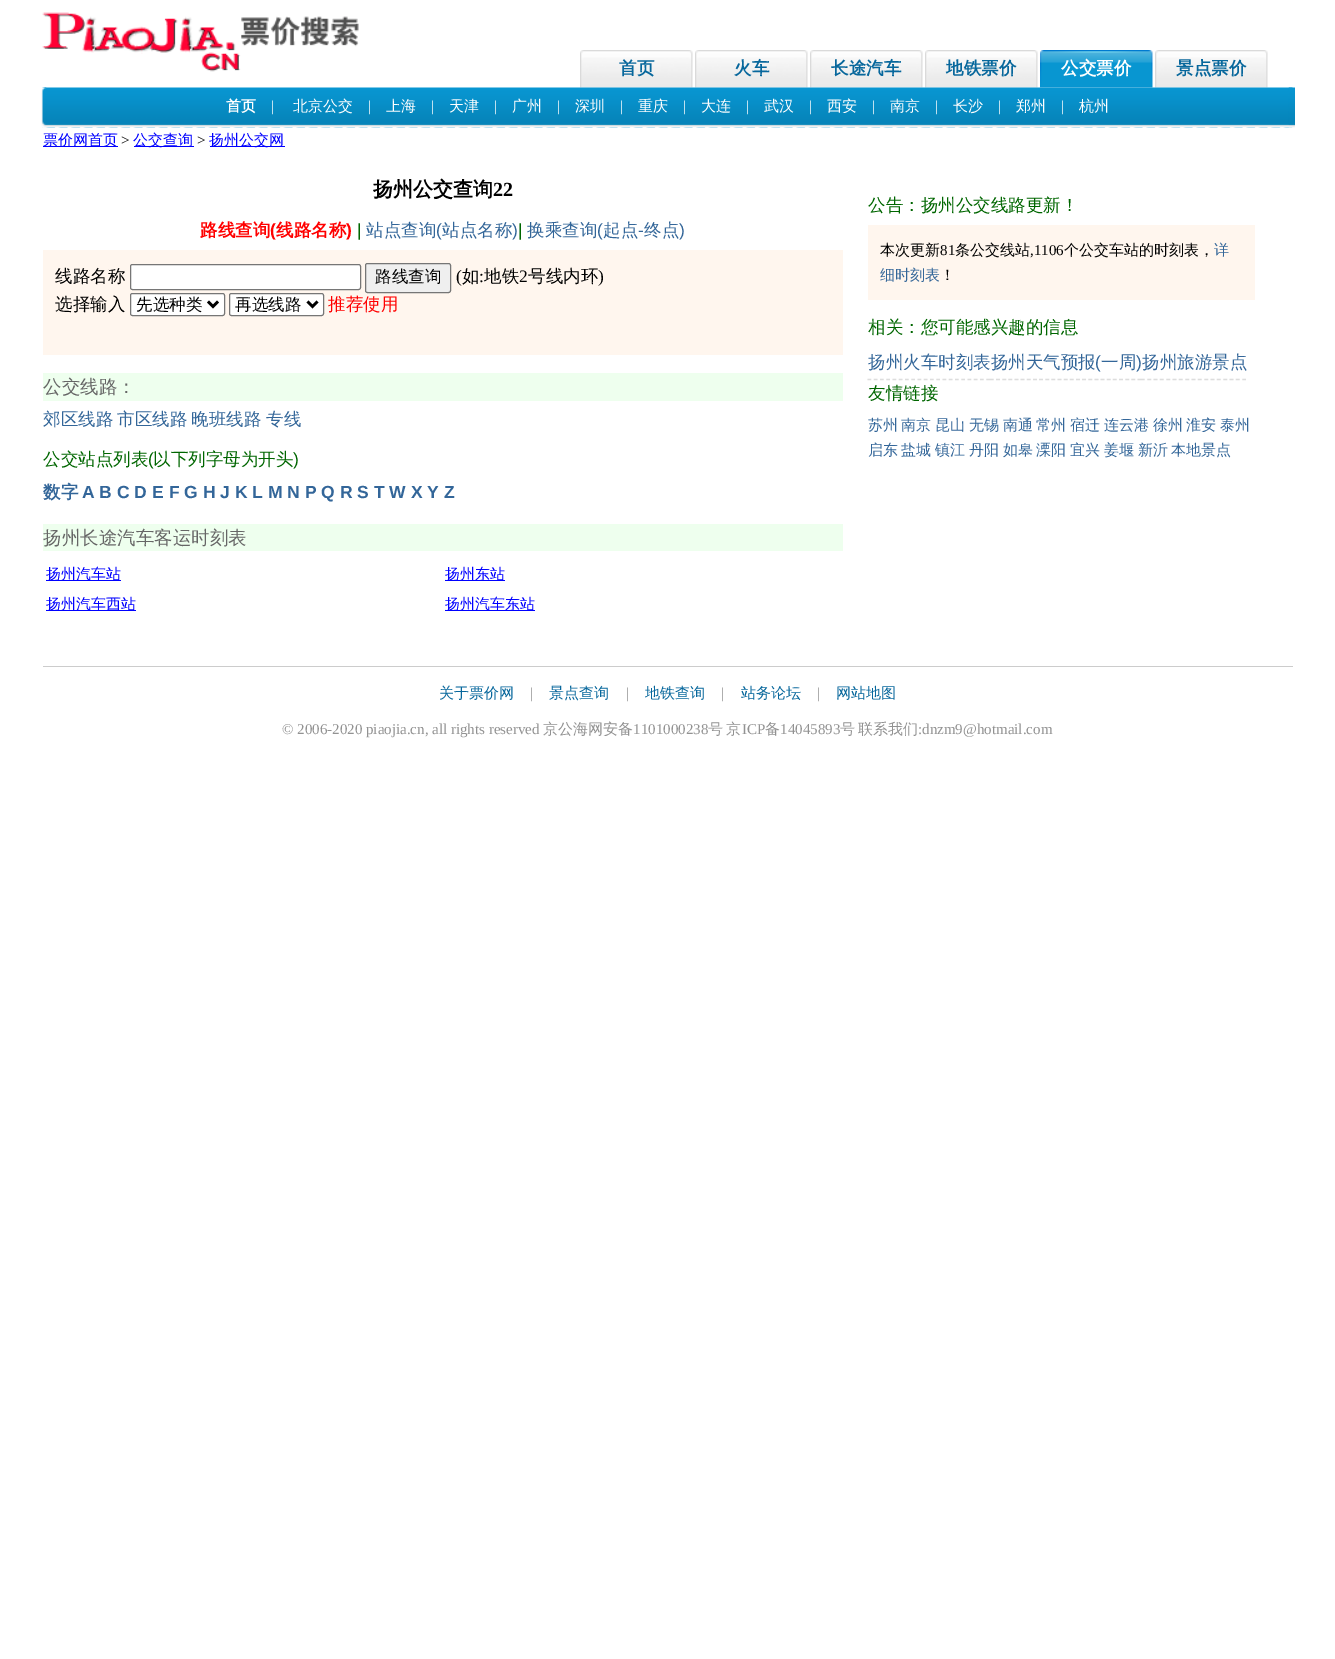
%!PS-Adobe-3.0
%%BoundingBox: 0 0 1335 1659
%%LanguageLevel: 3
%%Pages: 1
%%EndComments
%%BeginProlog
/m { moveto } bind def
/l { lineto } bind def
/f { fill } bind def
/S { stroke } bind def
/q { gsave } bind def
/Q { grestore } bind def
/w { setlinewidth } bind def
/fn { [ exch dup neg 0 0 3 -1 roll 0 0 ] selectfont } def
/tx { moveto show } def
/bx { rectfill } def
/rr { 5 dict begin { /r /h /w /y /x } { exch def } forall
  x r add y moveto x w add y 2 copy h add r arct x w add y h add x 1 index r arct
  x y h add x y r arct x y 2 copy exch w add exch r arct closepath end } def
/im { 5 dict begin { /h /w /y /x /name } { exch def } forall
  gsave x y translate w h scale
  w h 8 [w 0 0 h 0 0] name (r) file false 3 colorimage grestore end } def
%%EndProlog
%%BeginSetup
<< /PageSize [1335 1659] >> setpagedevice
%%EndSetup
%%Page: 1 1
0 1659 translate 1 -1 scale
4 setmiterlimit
1 setgray
0 0 1335 1659 bx
(image0.raw) 42 12 317 60 im
(image1.raw) 580 50 113 38 im
/WenQuanYiZenHei-Bold 17.5 fn
0.027 0.404 0.612 setrgbcolor
(首页) 619 74 tx
(image2.raw) 695 50 113 38 im
(火车) 734 74 tx
(image1.raw) 810 50 113 38 im
(长途汽车) 831 74 tx
(image1.raw) 925 50 113 38 im
(地铁票价) 946 74 tx
(image3.raw) 1040 50 113 38 im
1 setgray
(公交票价) 1061 74 tx
(image1.raw) 1155 50 113 38 im
0.027 0.404 0.612 setrgbcolor
(景点票价) 1176 74 tx
(image4.raw) 42 87 1251 41 im
(image5.raw) 41 87 6 41 im
/WenQuanYiZenHei-Bold 15 fn
1 setgray
(首页) 226 111 tx
/LiberationSerif-Regular 15 fn
(|) 271 111 tx
/WenQuanYiZenHei-Medium 15 fn
(北京公交) 293 111 tx
/LiberationSerif-Regular 15 fn
(|) 368 111 tx
/WenQuanYiZenHei-Medium 15 fn
(上海) 386 111 tx
/LiberationSerif-Regular 15 fn
(|) 431 111 tx
/WenQuanYiZenHei-Medium 15 fn
(天津) 449 111 tx
/LiberationSerif-Regular 15 fn
(|) 494 111 tx
/WenQuanYiZenHei-Medium 15 fn
(广州) 512 111 tx
/LiberationSerif-Regular 15 fn
(|) 557 111 tx
/WenQuanYiZenHei-Medium 15 fn
(深圳) 575 111 tx
/LiberationSerif-Regular 15 fn
(|) 620 111 tx
/WenQuanYiZenHei-Medium 15 fn
(重庆) 638 111 tx
/LiberationSerif-Regular 15 fn
(|) 683 111 tx
/WenQuanYiZenHei-Medium 15 fn
(大连) 701 111 tx
/LiberationSerif-Regular 15 fn
(|) 746 111 tx
/WenQuanYiZenHei-Medium 15 fn
(武汉) 764 111 tx
/LiberationSerif-Regular 15 fn
(|) 809 111 tx
/WenQuanYiZenHei-Medium 15 fn
(西安) 827 111 tx
/LiberationSerif-Regular 15 fn
(|) 872 111 tx
/WenQuanYiZenHei-Medium 15 fn
(南京) 890 111 tx
/LiberationSerif-Regular 15 fn
(|) 935 111 tx
/WenQuanYiZenHei-Medium 15 fn
(长沙) 953 111 tx
/LiberationSerif-Regular 15 fn
(|) 998 111 tx
/WenQuanYiZenHei-Medium 15 fn
(郑州) 1016 111 tx
/LiberationSerif-Regular 15 fn
(|) 1061 111 tx
/WenQuanYiZenHei-Medium 15 fn
(杭州) 1079 111 tx
(image6.raw) 1288 87 7 41 im
0 0 1 setrgbcolor
43 146 75 1 bx
(票价网首页) 43 145 tx
/LiberationSerif-Regular 15 fn
0 setgray
(>) 121 145 tx
0 0 1 setrgbcolor
134 146 60 1 bx
/WenQuanYiZenHei-Medium 15 fn
(公交查询) 133 145 tx
/LiberationSerif-Regular 15 fn
0 setgray
(>) 197 145 tx
0 0 1 setrgbcolor
210 146 75 1 bx
/WenQuanYiZenHei-Medium 15 fn
(扬州公交网) 209 145 tx
/WenQuanYiZenHei-Bold 20 fn
0 setgray
(扬州公交查询) 373 196 tx
/LiberationSerif-Bold 20 fn
(22) 493 196 tx
/WenQuanYiZenHei-Bold 17.5 fn
1 0 0 setrgbcolor
(路线查询) 200 236 tx
/LiberationSans-Bold 17.5 fn
(\() 270 236 tx
/WenQuanYiZenHei-Bold 17.5 fn
(线路名称) 276 236 tx
/LiberationSans-Bold 17.5 fn
(\)) 346 236 tx
/LiberationSans-Regular 17.5 fn
0 0.4 0 setrgbcolor
(|) 357 236 tx
/WenQuanYiZenHei-Medium 17.5 fn
0.2 0.4 0.6 setrgbcolor
(站点查询) 366 236 tx
/LiberationSans-Regular 17.5 fn
(\() 436 236 tx
/WenQuanYiZenHei-Medium 17.5 fn
(站点名称) 442 236 tx
/LiberationSans-Regular 17.5 fn
(\)) 512 236 tx
0 0.4 0 setrgbcolor
(|) 518 236 tx
/WenQuanYiZenHei-Medium 17.5 fn
0.2 0.4 0.6 setrgbcolor
(换乘查询) 527 236 tx
/LiberationSans-Regular 17.5 fn
(\() 597 236 tx
/WenQuanYiZenHei-Medium 17.5 fn
(起点) 603 236 tx
/LiberationSans-Regular 17.5 fn
(-) 638 236 tx
/WenQuanYiZenHei-Medium 17.5 fn
(终点) 644 236 tx
/LiberationSans-Regular 17.5 fn
(\)) 679 236 tx
1 0.965 0.933 setrgbcolor
43 250 800 105 bx
/WenQuanYiZenHei-Medium 17.5 fn
0 setgray
(线路名称) 55 282 tx
1 setgray
130.5 264.5 230 25 2 rr q f Q
0.463 setgray
S
0.937 setgray
365.5 263.5 85 29 2 rr q f Q
0.463 setgray
S
/WenQuanYiZenHei-Medium 16.5 fn
0 setgray
(路线查询) 375 282 tx
/LiberationSerif-Regular 17.5 fn
(\() 456 282 tx
/WenQuanYiZenHei-Medium 17.5 fn
(如) 462 282 tx
/LiberationSerif-Regular 17.5 fn
(:) 479 282 tx
/WenQuanYiZenHei-Medium 17.5 fn
(地铁) 484 282 tx
/LiberationSerif-Regular 17.5 fn
(2) 519 282 tx
/WenQuanYiZenHei-Medium 17.5 fn
(号线内环) 528 282 tx
/LiberationSerif-Regular 17.5 fn
(\)) 598 282 tx
/WenQuanYiZenHei-Medium 17.5 fn
(选择输入) 55 310 tx
1 setgray
130.5 293.5 94 22 2 rr q f Q
0.463 setgray
S
0 setgray
2.5 w
208 301.5 m 213 306.5 l 218 301.5 l S
/WenQuanYiZenHei-Medium 16.5 fn
(先选种类) 136 310 tx
1 setgray
229.5 293.5 94 22 2 rr q f Q
0.463 setgray
1 w
S
0 setgray
2.5 w
307.5 301.5 m 312.5 306.5 l 317.5 301.5 l S
(再选线路) 235 310 tx
/WenQuanYiZenHei-Medium 17.5 fn
1 0 0 setrgbcolor
(推荐使用) 328 310 tx
0.933 1 0.933 setrgbcolor
43 373 800 28 bx
/WenQuanYiZenHei-Medium 18.5 fn
0.4 setgray
(公交线路：) 43 393 tx
/WenQuanYiZenHei-Medium 17.5 fn
0.2 0.4 0.6 setrgbcolor
(郊区线路) 43 425 tx
(市区线路) 117 425 tx
(晚班线路) 191 425 tx
(专线) 266 425 tx
0 0.4 0 setrgbcolor
(公交站点列表) 43 465 tx
/LiberationSans-Regular 17.5 fn
(\() 148 465 tx
/WenQuanYiZenHei-Medium 17.5 fn
(以下列字母为开头) 153 465 tx
/LiberationSans-Regular 17.5 fn
(\)) 293 465 tx
/WenQuanYiZenHei-Bold 17.5 fn
0.2 0.4 0.6 setrgbcolor
(数字) 43 498 tx
/LiberationSans-Bold 17.5 fn
(A B C D E F G H J K L M N P Q R S T W X Y Z) 82 498 tx
0.933 1 0.933 setrgbcolor
43 524 800 27 bx
/WenQuanYiZenHei-Medium 18.5 fn
0.4 setgray
(扬州长途汽车客运时刻表) 43 544 tx
0 0 1 setrgbcolor
46 580 75 1 bx
/WenQuanYiZenHei-Medium 15 fn
(扬州汽车站) 46 579 tx
445 580 60 1 bx
(扬州东站) 445 579 tx
46 610 90 1 bx
(扬州汽车西站) 46 609 tx
445 610 90 1 bx
(扬州汽车东站) 445 609 tx
/WenQuanYiZenHei-Medium 17.5 fn
0 0.4 0 setrgbcolor
(公告：扬州公交线路更新！) 868 211 tx
1 0.965 0.933 setrgbcolor
868 225 387 75 bx
/WenQuanYiZenHei-Medium 15 fn
0 setgray
(本次更新) 880 255 tx
/LiberationSerif-Regular 15 fn
(81) 940 255 tx
/WenQuanYiZenHei-Medium 15 fn
(条公交线站) 955 255 tx
/LiberationSerif-Regular 15 fn
(,1106) 1030 255 tx
/WenQuanYiZenHei-Medium 15 fn
(个公交车站的时刻表，) 1064 255 tx
0.2 0.4 0.6 setrgbcolor
(详) 1214 255 tx
(细时刻表) 880 280 tx
0 setgray
(！) 940 280 tx
/WenQuanYiZenHei-Medium 17.5 fn
0 0.4 0 setrgbcolor
(相关：您可能感兴趣的信息) 868 333 tx
0.867 setgray
1.2 w
[3.75 2.5] 0 setdash
867.5 379.5 m 990 379.5 l S
0.2 0.4 0.6 setrgbcolor
(扬州火车时刻表扬州天气预报) 868 368 tx
0.867 setgray
[3.75 2.4] 0 setdash
990 379.5 m 1141 379.5 l S
/LiberationSans-Regular 17.5 fn
0.2 0.4 0.6 setrgbcolor
(\() 1095 368 tx
/WenQuanYiZenHei-Medium 17.5 fn
(一周) 1101 368 tx
/LiberationSans-Regular 17.5 fn
(\)) 1136 368 tx
0.867 setgray
[3.75 2.58] 0 setdash
1141 379.5 m 1246 379.5 l S
/WenQuanYiZenHei-Medium 17.5 fn
0.2 0.4 0.6 setrgbcolor
(扬州旅游景点) 1142 368 tx
0 0.4 0 setrgbcolor
(友情链接) 868 399 tx
/WenQuanYiZenHei-Medium 15 fn
0.2 0.4 0.6 setrgbcolor
(苏州) 868 430 tx
(南京) 901 430 tx
(昆山) 935 430 tx
(无锡) 969 430 tx
(南通) 1003 430 tx
(常州) 1036 430 tx
(宿迁) 1070 430 tx
(连云港) 1104 430 tx
(徐州) 1153 430 tx
(淮安) 1186 430 tx
(泰州) 1220 430 tx
(启东) 868 455 tx
(盐城) 901 455 tx
(镇江) 935 455 tx
(丹阳) 969 455 tx
(如皋) 1003 455 tx
(溧阳) 1036 455 tx
(宜兴) 1070 455 tx
(姜堰) 1104 455 tx
(新沂) 1138 455 tx
(本地景点) 1171 455 tx
0.8 setgray
43 666 1250 1 bx
0.027 0.404 0.612 setrgbcolor
(关于票价网) 439 698 tx
/LiberationSerif-Regular 15 fn
0.573 setgray
(|) 530 698 tx
/WenQuanYiZenHei-Medium 15 fn
0.027 0.404 0.612 setrgbcolor
(景点查询) 549 698 tx
/LiberationSerif-Regular 15 fn
0.573 setgray
(|) 626 698 tx
/WenQuanYiZenHei-Medium 15 fn
0.027 0.404 0.612 setrgbcolor
(地铁查询) 645 698 tx
/LiberationSerif-Regular 15 fn
0.573 setgray
(|) 721 698 tx
/WenQuanYiZenHei-Medium 15 fn
0.027 0.404 0.612 setrgbcolor
(站务论坛) 741 698 tx
/LiberationSerif-Regular 15 fn
0.573 setgray
(|) 817 698 tx
/WenQuanYiZenHei-Medium 15 fn
0.027 0.404 0.612 setrgbcolor
(网站地图) 836 698 tx
/LiberationSerif-Regular 15 fn
0.573 setgray
(© 2006-2020 piaojia.cn, all rights reserved) 282 734 tx
/WenQuanYiZenHei-Medium 15 fn
(京公海网安备) 543 734 tx
/LiberationSerif-Regular 15 fn
(1101000238) 633 734 tx
/WenQuanYiZenHei-Medium 15 fn
708 734 m -1 0 32 (号 京) widthshow
/LiberationSerif-Regular 15 fn
(ICP) 742 734 tx
/WenQuanYiZenHei-Medium 15 fn
(备) 765 734 tx
/LiberationSerif-Regular 15 fn
(14045893) 780 734 tx
/WenQuanYiZenHei-Medium 15 fn
(号) 840 734 tx
(联系我们) 858 734 tx
/LiberationSerif-Regular 15 fn
(:dnzm9@hotmail.com) 918 734 tx
showpage
%%EOF
